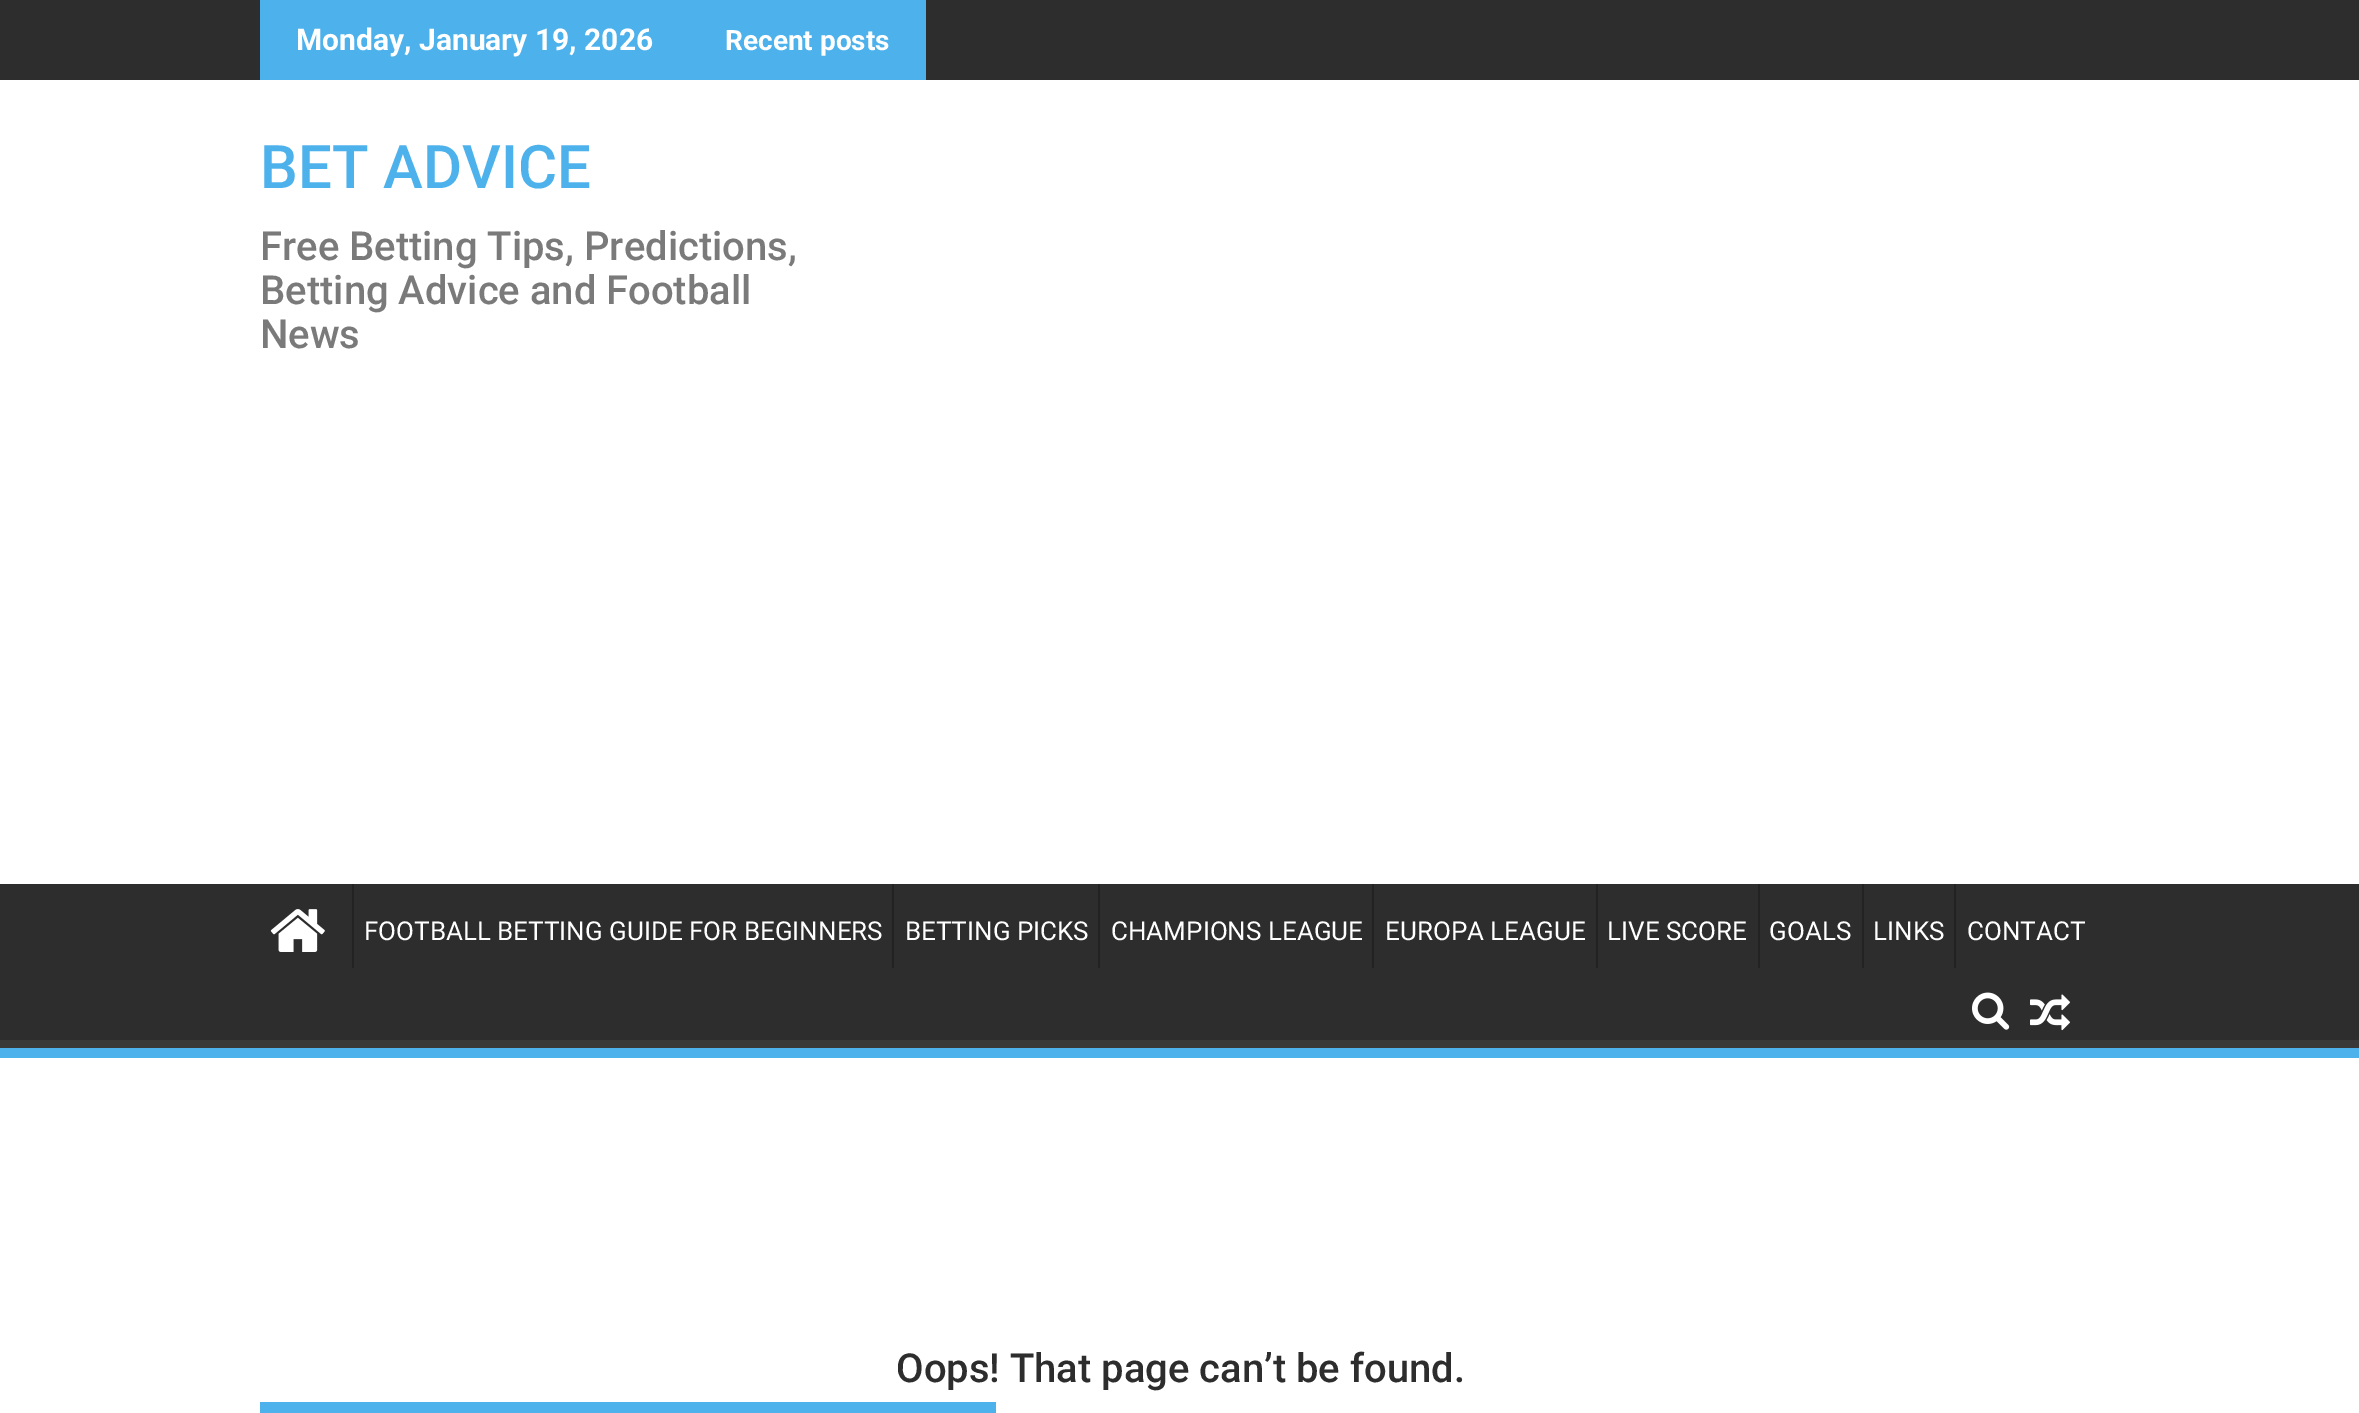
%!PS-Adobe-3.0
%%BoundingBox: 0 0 2359 1413
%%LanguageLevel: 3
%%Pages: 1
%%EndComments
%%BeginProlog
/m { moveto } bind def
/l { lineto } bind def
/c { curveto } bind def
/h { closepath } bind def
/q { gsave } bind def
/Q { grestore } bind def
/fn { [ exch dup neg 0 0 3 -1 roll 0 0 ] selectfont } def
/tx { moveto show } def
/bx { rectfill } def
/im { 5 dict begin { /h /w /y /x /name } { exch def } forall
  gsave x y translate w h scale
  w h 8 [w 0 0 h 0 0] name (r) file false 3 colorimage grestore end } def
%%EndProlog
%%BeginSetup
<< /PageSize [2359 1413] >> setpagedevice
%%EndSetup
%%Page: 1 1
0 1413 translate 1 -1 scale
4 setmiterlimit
1 setgray
0 0 2359 1413 bx
0.176 setgray
0 0 2359 80 bx
0.302 0.698 0.925 setrgbcolor
260 0 666 80 bx
/Roboto-Bold 30 fn
1 setgray
(Monday, January 19, 2026) 296 50 tx
/Roboto-Bold 28 fn
(Recent posts) 725 50 tx
/Roboto-Medium 60 fn
0.302 0.698 0.925 setrgbcolor
(BET ADVICE) 260 188 tx
/Roboto-Medium 40 fn
0.478 setgray
(Free Betting Tips, Predictions,) 260 260 tx
(Betting Advice and Football) 260 304 tx
(News) 260 348 tx
0.176 setgray
0 884 2359 156 bx
q
0 884 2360 164 rectclip
0.224 setgray
-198 686 m 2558 686 l 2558 1246 l -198 1246 l h -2 872 m 2358 872 l 2359 872 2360 873 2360 874 c 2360 1038 l 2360 1039 2359 1040 2358 1040 c -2 1040 l -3 1040 -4 1039 -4 1038 c -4 874 l -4 873 -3 872 -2 872 c h eofill
Q
0.302 0.698 0.925 setrgbcolor
0 1048 2359 10 bx
(image0.raw) 270 909 55 43 im
0.133 setgray
352 884 2 84 bx
/Roboto-Regular 26 fn
1 setgray
(FOOTBALL BETTING GUIDE FOR BEGINNERS) 364 940 tx
0.133 setgray
892 884 2 84 bx
1 setgray
(BETTING PICKS) 905 940 tx
0.133 setgray
1098 884 2 84 bx
1 setgray
(CHAMPIONS LEAGUE) 1111 940 tx
0.133 setgray
1372 884 2 84 bx
1 setgray
(EUROPA LEAGUE) 1385 940 tx
0.133 setgray
1596 884 2 84 bx
1 setgray
(LIVE SCORE) 1607 940 tx
0.133 setgray
1758 884 2 84 bx
1 setgray
(GOALS) 1769 940 tx
0.133 setgray
1862 884 2 84 bx
1 setgray
(LINKS) 1873 940 tx
0.133 setgray
1954 884 2 84 bx
1 setgray
(CONTACT) 1967 940 tx
(image1.raw) 1972 992 38 38 im
(image2.raw) 2030 994 40 37 im
/Roboto-Medium 40 fn
0.176 setgray
(Oops! That page can’t be found.) 896 1382 tx
0.302 0.698 0.925 setrgbcolor
260 1402 736 11 bx
showpage
%%EOF
